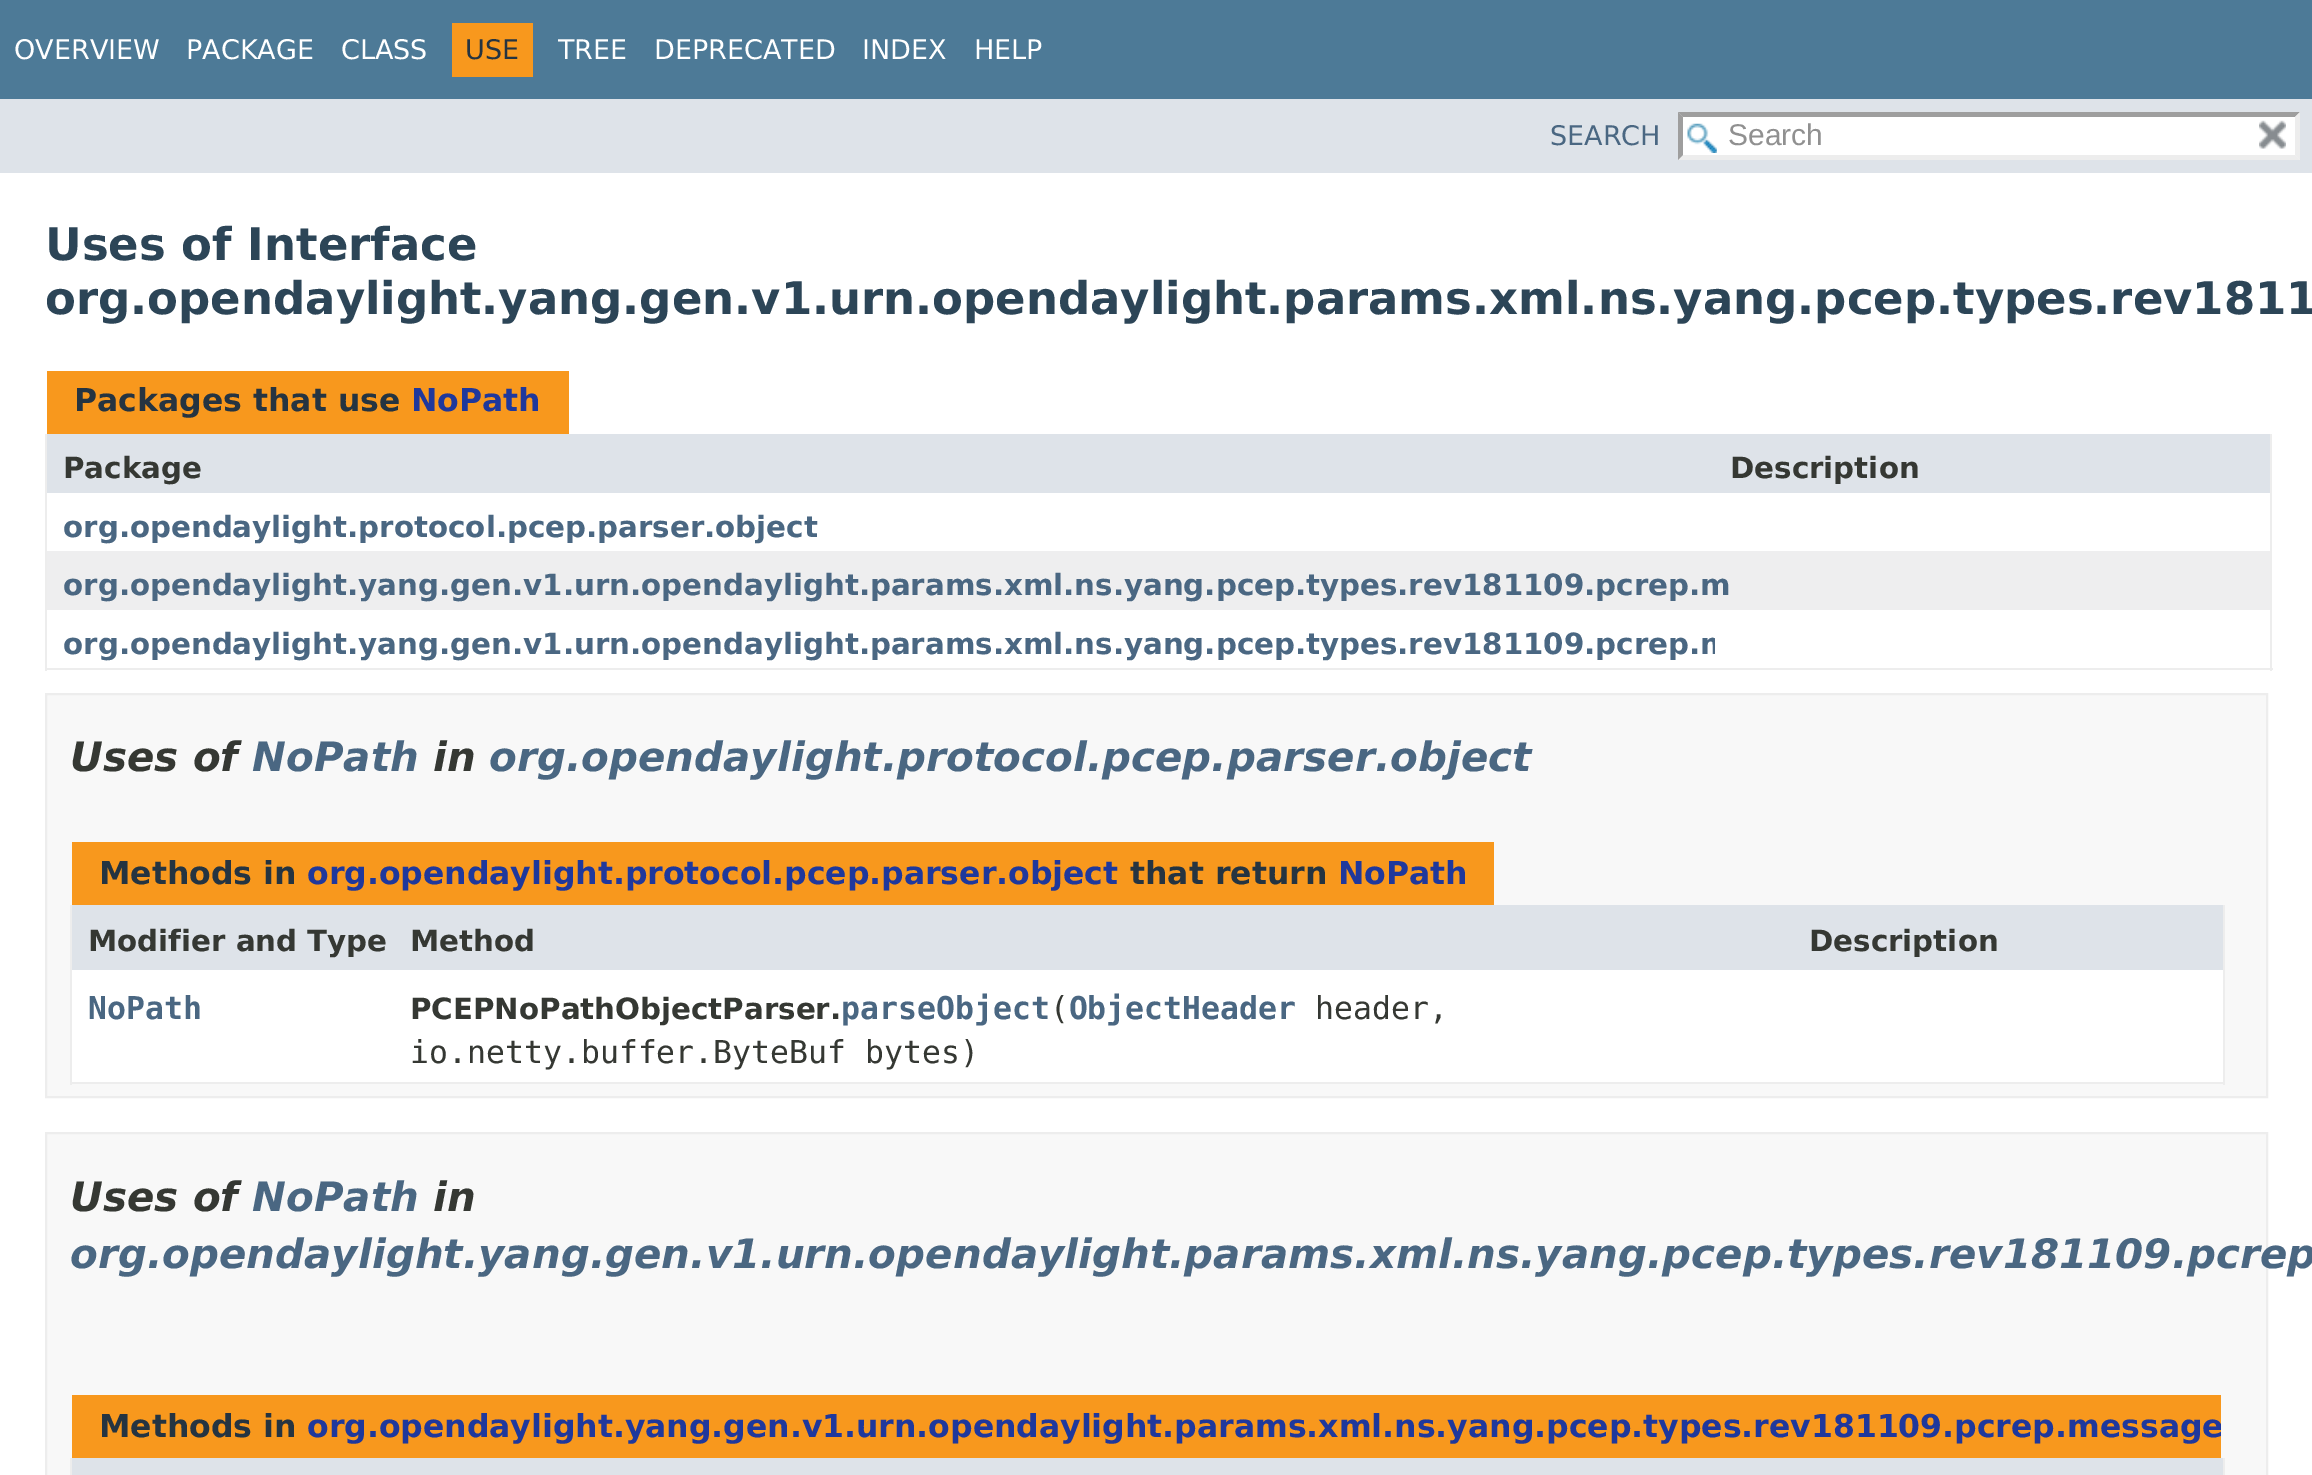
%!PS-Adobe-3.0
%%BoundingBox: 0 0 2312 1475
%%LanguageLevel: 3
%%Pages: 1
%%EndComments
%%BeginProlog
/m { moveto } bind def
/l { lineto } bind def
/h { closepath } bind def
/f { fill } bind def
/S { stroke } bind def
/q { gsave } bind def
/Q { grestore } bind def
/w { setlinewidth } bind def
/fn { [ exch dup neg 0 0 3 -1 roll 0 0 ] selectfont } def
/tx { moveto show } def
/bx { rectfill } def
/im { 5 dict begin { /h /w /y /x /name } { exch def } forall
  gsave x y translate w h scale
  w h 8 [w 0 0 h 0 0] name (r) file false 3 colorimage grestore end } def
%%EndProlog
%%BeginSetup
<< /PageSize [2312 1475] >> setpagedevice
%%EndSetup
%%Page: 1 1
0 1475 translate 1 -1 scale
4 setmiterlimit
1 setgray
0 0 2312 1475 bx
0.302 0.478 0.592 setrgbcolor
0 0 2312 99 bx
/DejaVuSans-Regular 27 fn
1 setgray
(OVERVIEW) 14 59 tx
(PACKAGE) 186 59 tx
(CLASS) 341 59 tx
0.973 0.596 0.114 setrgbcolor
452 23 81 54 bx
0.145 0.204 0.255 setrgbcolor
(USE) 465 59 tx
1 setgray
(TREE) 558 59 tx
(DEPRECATED) 654 59 tx
(INDEX) 862 59 tx
(HELP) 974 59 tx
0.871 0.89 0.914 setrgbcolor
0 99 2312 74 bx
0.29 0.404 0.51 setrgbcolor
(SEARCH) 1550 145 tx
1 setgray
1679 113 621 47 bx
(image0.raw) 1687 123 30 30 im
0.62 setgray
1678 112 m 2300 112 l 2295 117 l 1683 117 l h f
0.929 setgray
2300 112 m 2300 160 l 2295 155 l 2295 117 l h f
2300 160 m 1678 160 l 1683 155 l 2295 155 l h f
0.62 setgray
1678 160 m 1678 112 l 1683 117 l 1683 155 l h f
/LiberationSans-Regular 30 fn
0.565 setgray
(Search) 1728 145 tx
(image1.raw) 2259 120 27 29 im
/DejaVuSans-Bold 44.98 fn
0.173 0.271 0.341 setrgbcolor
(Uses of Interface) 45 260 tx
(org.opendaylight.yang.gen.v1.urn.opendaylight.params.xml.ns.yang.pcep.types.rev1811) 45 314 tx
0.973 0.596 0.114 setrgbcolor
47 371 522 63 bx
/DejaVuSans-Bold 31.5 fn
0.145 0.204 0.255 setrgbcolor
(Packages that use) 74 411 tx
0.122 0.22 0.612 setrgbcolor
(NoPath) 411 411 tx
0.929 setgray
2270 434 2 237 bx
45 668 2228 2 bx
45 434 2 237 bx
0.871 0.89 0.914 setrgbcolor
47 434 2223 59 bx
/DejaVuSans-Bold 29.3 fn
0.208 0.22 0.2 setrgbcolor
(Package) 63 478 tx
(Description) 1730 478 tx
0.29 0.404 0.51 setrgbcolor
(org.opendaylight.protocol.pcep.parser.object) 63 537 tx
0.933 0.933 0.937 setrgbcolor
47 551 2223 59 bx
0.29 0.404 0.51 setrgbcolor
(org.opendaylight.yang.gen.v1.urn.opendaylight.params.xml.ns.yang.pcep.types.rev181109.pcrep.m) 63 595 tx
q
47 610 1668 58 rectclip
(org.opendaylight.yang.gen.v1.urn.opendaylight.params.xml.ns.yang.pcep.types.rev181109.pcrep.m) 63 654 tx
Q
0.973 setgray
46 694 m 2267 694 l 2267 1097 l 46 1097 l h q f Q
0.929 setgray
2 w
S
/DejaVuSans-BoldItalic 40.48 fn
0.208 0.22 0.2 setrgbcolor
(Uses of) 70 771 tx
0.29 0.404 0.51 setrgbcolor
(NoPath) 252 771 tx
0.208 0.22 0.2 setrgbcolor
(in) 433 771 tx
0.29 0.404 0.51 setrgbcolor
(org.opendaylight.protocol.pcep.parser.object) 489 771 tx
0.973 0.596 0.114 setrgbcolor
72 842 1422 63 bx
/DejaVuSans-Bold 31.5 fn
0.145 0.204 0.255 setrgbcolor
(Methods in) 99 884 tx
0.122 0.22 0.612 setrgbcolor
(org.opendaylight.protocol.pcep.parser.object) 307 884 tx
0.145 0.204 0.255 setrgbcolor
(that return) 1130 884 tx
0.122 0.22 0.612 setrgbcolor
(NoPath) 1338 884 tx
0.929 setgray
2223 905 2 180 bx
70 1082 2155 2 bx
70 905 2 180 bx
0.871 0.89 0.914 setrgbcolor
72 905 2151 65 bx
/DejaVuSans-Bold 29.3 fn
0.208 0.22 0.2 setrgbcolor
(Modifier and Type) 88 951 tx
(Method) 410 951 tx
(Description) 1809 951 tx
1 setgray
72 970 2151 112 bx
/DejaVuSansMono-Bold 31.5 fn
0.29 0.404 0.51 setrgbcolor
(NoPath) 88 1019 tx
(parseObject ObjectHeader) 841 1019 tx
/DejaVuSans-Bold 29.3 fn
0.208 0.22 0.2 setrgbcolor
(PCEPNoPathObjectParser.) 410 1019 tx
/DejaVuSansMono-Regular 31.5 fn
(\() 1050 1019 tx
(header,) 1315 1019 tx
(io.netty.buffer.ByteBuf bytes\)) 410 1063 tx
0.973 setgray
46 1133 m 2267 1133 l 2267 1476 l 46 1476 l h q f Q
0.929 setgray
S
/DejaVuSans-BoldItalic 40.48 fn
0.208 0.22 0.2 setrgbcolor
(Uses of) 70 1211 tx
0.29 0.404 0.51 setrgbcolor
(NoPath) 252 1211 tx
0.208 0.22 0.2 setrgbcolor
(in) 433 1211 tx
0.29 0.404 0.51 setrgbcolor
(org.opendaylight.yang.gen.v1.urn.opendaylight.params.xml.ns.yang.pcep.types.rev181109.pcrep) 70 1268 tx
0.973 0.596 0.114 setrgbcolor
72 1395 2149 63 bx
/DejaVuSans-Bold 31.5 fn
0.145 0.204 0.255 setrgbcolor
(Methods in) 99 1437 tx
q
70 1373 2151 85 rectclip
0.122 0.22 0.612 setrgbcolor
(org.opendaylight.yang.gen.v1.urn.opendaylight.params.xml.ns.yang.pcep.types.rev181109.pcrep.message) 307 1437 tx
Q
0.929 setgray
2223 1458 2 17 bx
70 1458 2 17 bx
0.871 0.89 0.914 setrgbcolor
72 1458 2151 17 bx
showpage
%%EOF
